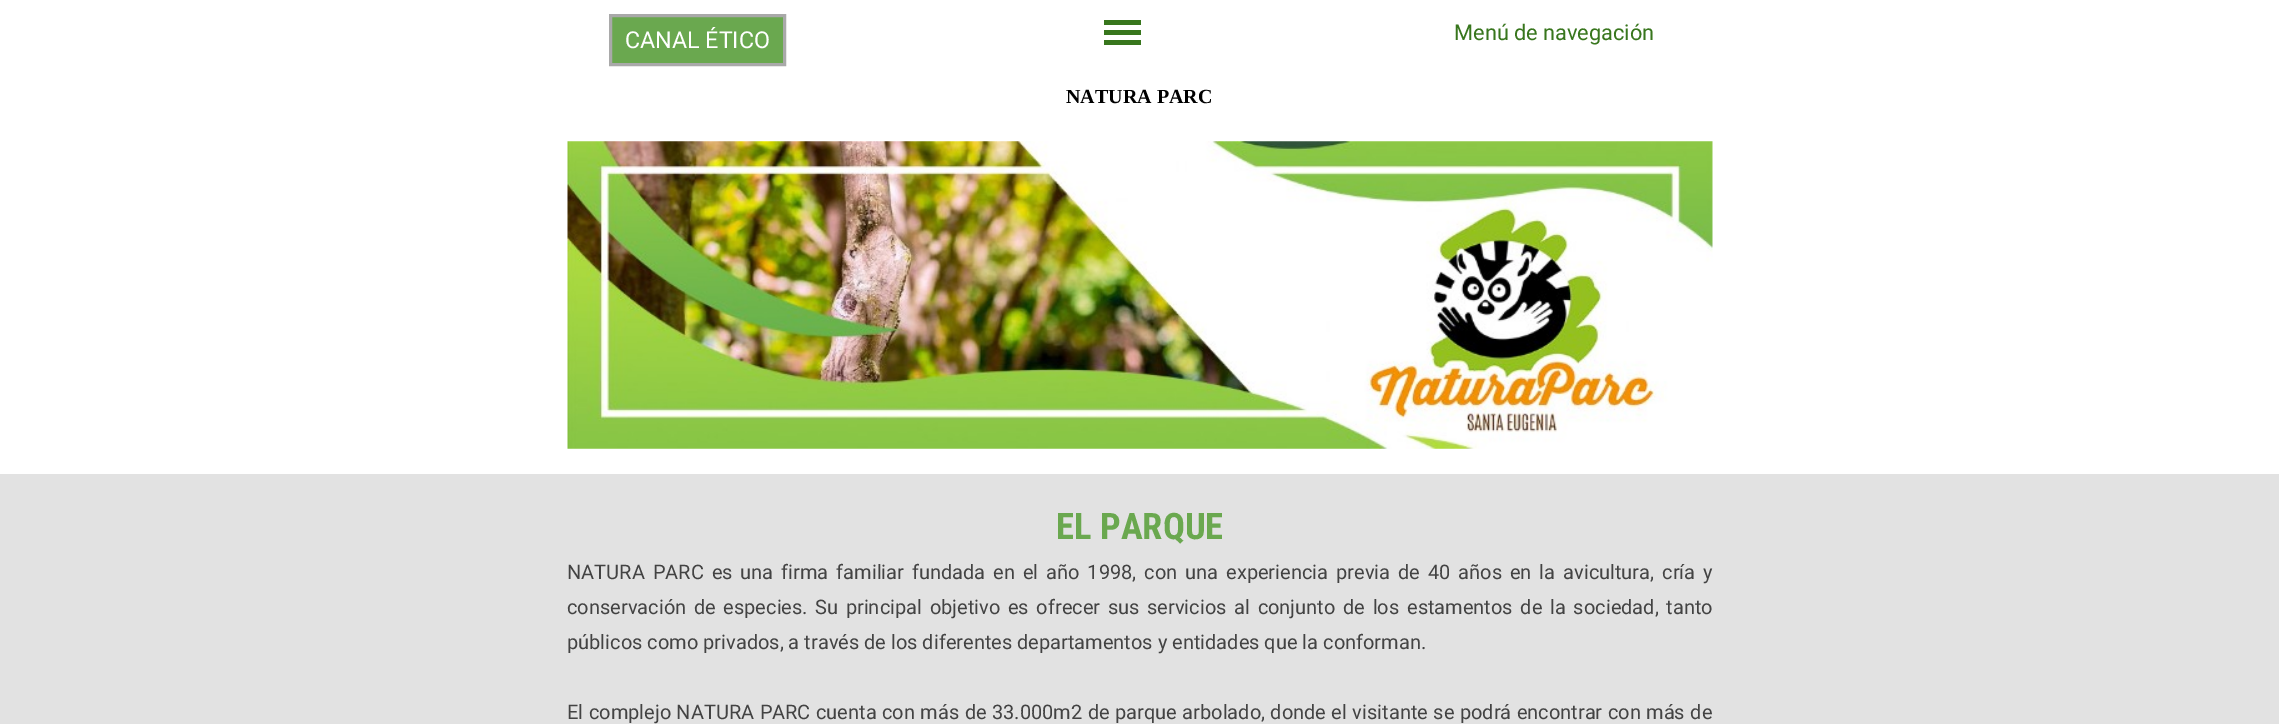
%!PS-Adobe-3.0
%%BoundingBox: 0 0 2279 724
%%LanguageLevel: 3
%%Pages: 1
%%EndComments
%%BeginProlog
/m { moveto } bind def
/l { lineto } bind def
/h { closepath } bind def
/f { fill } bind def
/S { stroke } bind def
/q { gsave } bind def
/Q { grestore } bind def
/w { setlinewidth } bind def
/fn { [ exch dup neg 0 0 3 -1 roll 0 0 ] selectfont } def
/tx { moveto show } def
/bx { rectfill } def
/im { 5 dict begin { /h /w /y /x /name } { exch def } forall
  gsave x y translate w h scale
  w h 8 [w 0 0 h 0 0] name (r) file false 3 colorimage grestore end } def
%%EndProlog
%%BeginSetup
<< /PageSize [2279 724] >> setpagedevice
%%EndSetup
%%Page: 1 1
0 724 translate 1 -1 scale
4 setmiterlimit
1 setgray
0 0 2279 724 bx
0.416 0.659 0.31 setrgbcolor
610.5 15.5 m 784.5 15.5 l 784.5 64.5 l 610.5 64.5 l h q f Q
0.663 setgray
3 w
S
/Roboto-Regular 23.25 fn
1 setgray
(CANAL ÉTICO) 625 48 tx
0.22 0.463 0.114 setrgbcolor
1104 20 37 5 bx
1104 30 37 5 bx
1104 40 37 5 bx
/Roboto-Regular 21.75 fn
(Menú de navegación) 1454 40 tx
/LiberationSerif-Bold 20 fn
0 setgray
(NATURA PARC) 1066 103 tx
(image0.raw) 567 141 1146 308 im
0.886 setgray
0 474 2279 250 bx
/RobotoCondensed-Bold 36.5 fn
0.416 0.659 0.31 setrgbcolor
(EL PARQUE) 1056 539 tx
/Roboto-Regular 20 fn
0.263 setgray
567 579 m 3 0 32 (NATURA PARC es una firma familiar fundada en el año 1998, con una experiencia previa de 40 años en la avicultura, cría y) widthshow
567 614 m 2.75 0 32 (conservación de especies.) widthshow
815 614 m 2.75 0 32 (Su principal objetivo es ofrecer sus servicios al conjunto de los estamentos de la sociedad, tanto) widthshow
(públicos como privados, a través de los diferentes departamentos y entidades que la conforman.) 567 649 tx
567 719 m 0.5 0 32 (El complejo NATURA PARC cuenta con más de 33.000m2 de parque arbolado, donde el visitante se podrá encontrar con más de) widthshow
showpage
%%EOF
